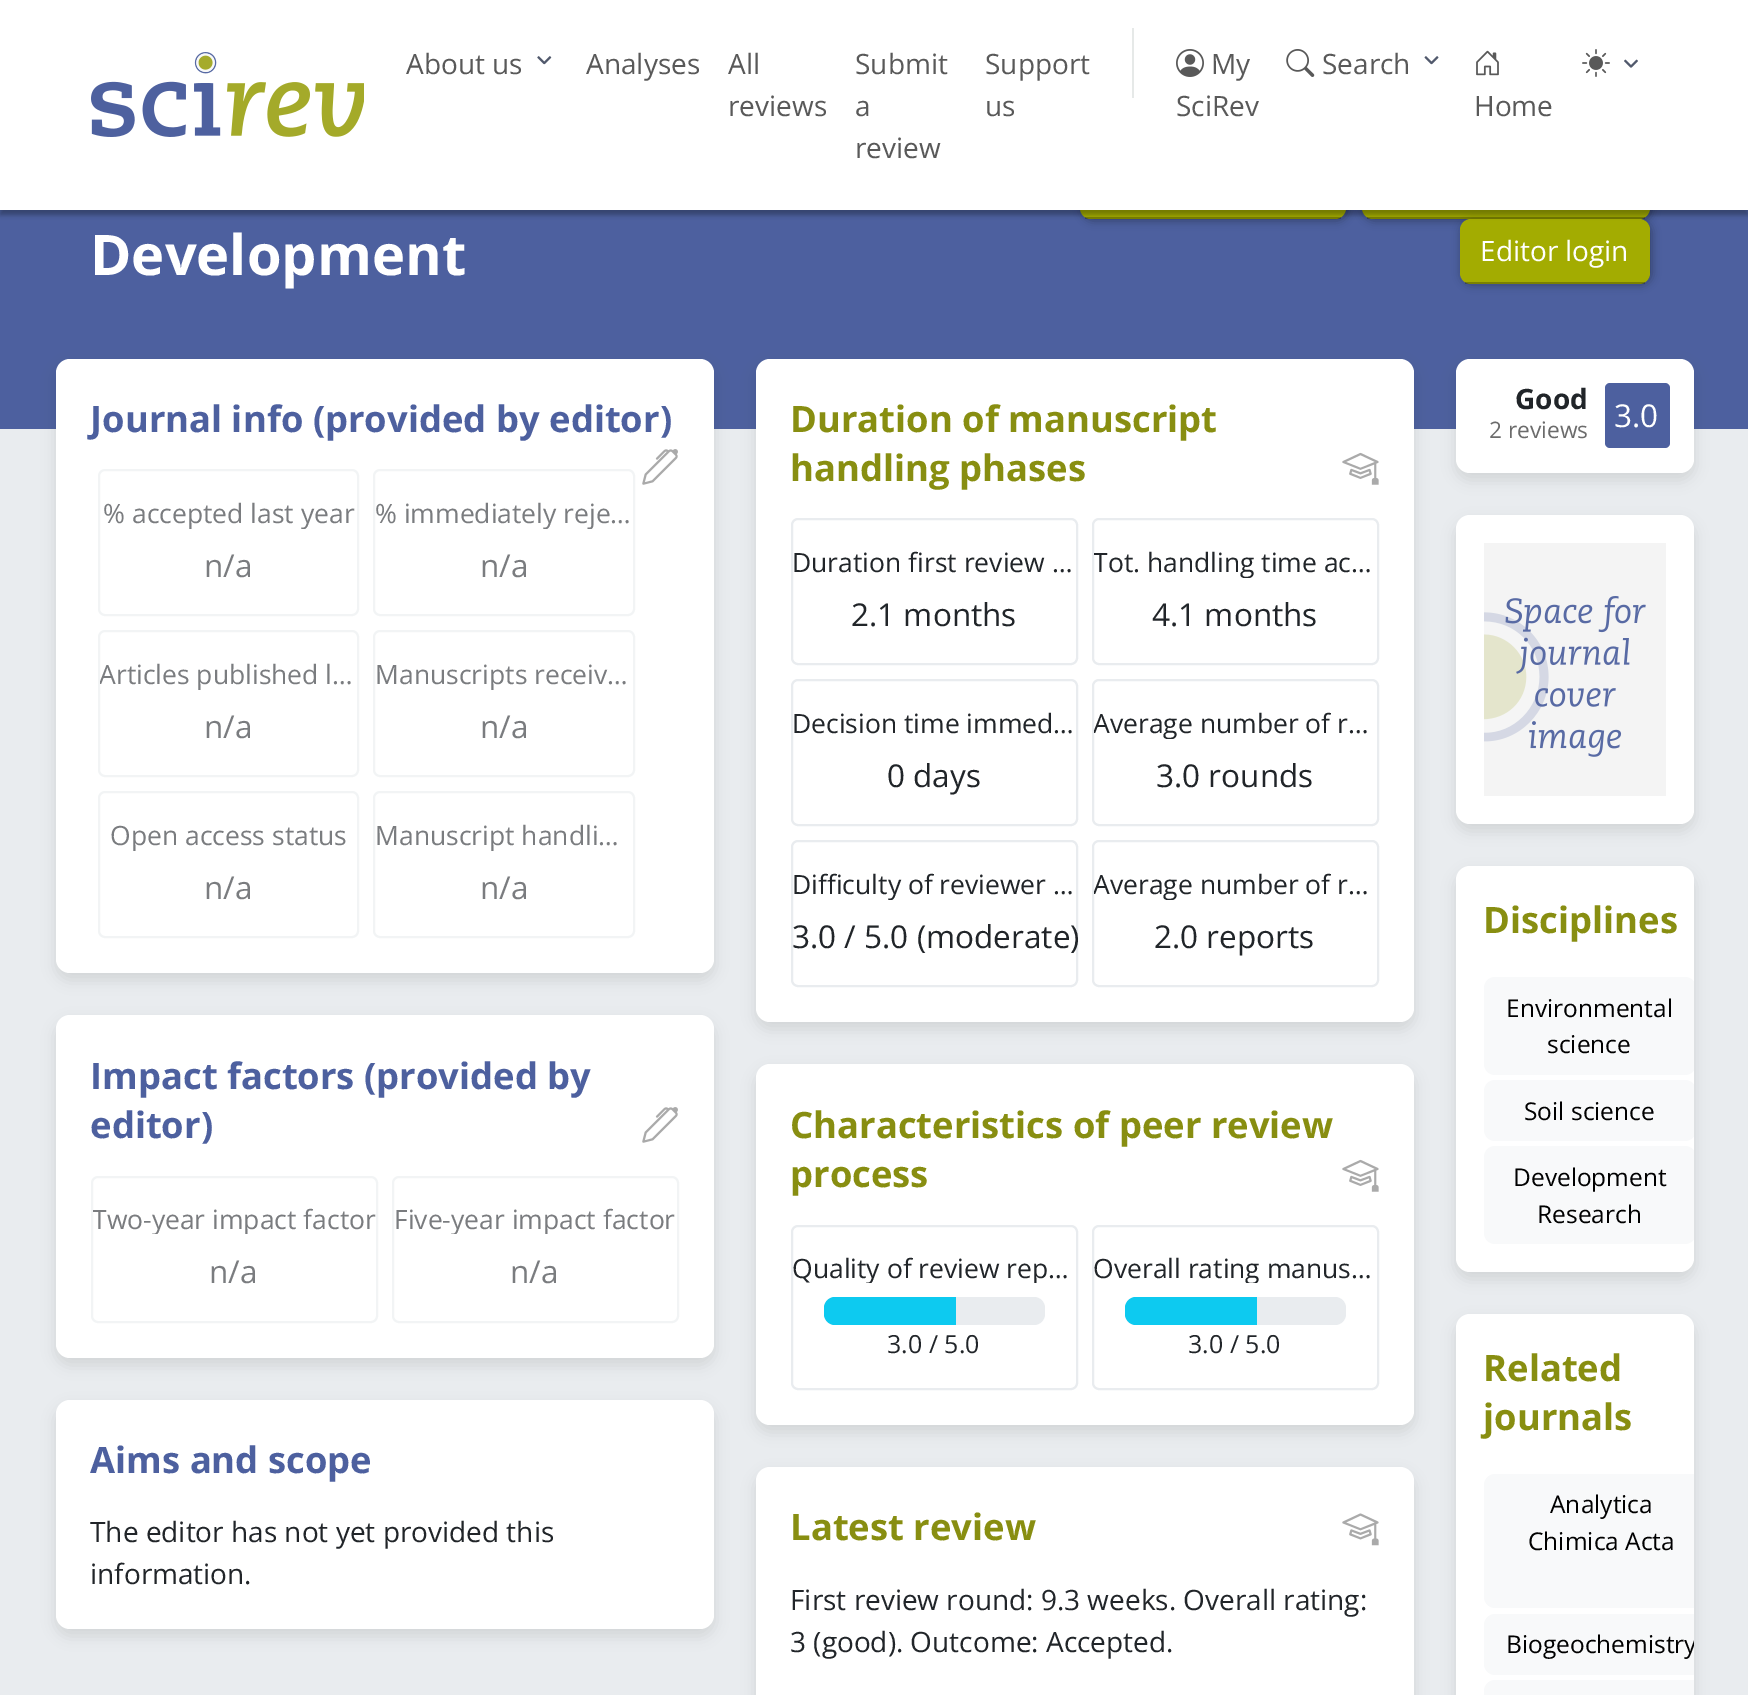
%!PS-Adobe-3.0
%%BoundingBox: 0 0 1748 1695
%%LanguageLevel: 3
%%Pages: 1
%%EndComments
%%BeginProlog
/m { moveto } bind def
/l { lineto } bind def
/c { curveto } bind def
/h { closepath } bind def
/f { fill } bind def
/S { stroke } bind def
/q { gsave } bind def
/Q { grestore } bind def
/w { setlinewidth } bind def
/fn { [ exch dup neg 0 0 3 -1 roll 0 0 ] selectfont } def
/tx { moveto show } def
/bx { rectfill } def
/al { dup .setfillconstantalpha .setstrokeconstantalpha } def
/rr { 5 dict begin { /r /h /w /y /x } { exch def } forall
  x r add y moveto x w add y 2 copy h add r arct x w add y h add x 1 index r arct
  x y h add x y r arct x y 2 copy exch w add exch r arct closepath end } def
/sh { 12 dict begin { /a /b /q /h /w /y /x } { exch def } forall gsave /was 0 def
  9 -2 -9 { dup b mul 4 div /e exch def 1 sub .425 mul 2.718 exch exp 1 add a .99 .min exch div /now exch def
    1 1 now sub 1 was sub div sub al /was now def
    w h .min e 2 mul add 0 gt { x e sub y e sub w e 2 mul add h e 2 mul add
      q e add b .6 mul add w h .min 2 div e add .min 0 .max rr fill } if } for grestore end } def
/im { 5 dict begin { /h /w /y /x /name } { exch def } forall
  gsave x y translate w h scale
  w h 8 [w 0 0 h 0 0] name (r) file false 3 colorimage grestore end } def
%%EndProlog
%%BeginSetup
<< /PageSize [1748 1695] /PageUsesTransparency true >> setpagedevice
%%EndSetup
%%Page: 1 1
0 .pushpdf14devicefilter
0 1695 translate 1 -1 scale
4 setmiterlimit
0.914 0.925 0.937 setrgbcolor
0 0 1748 1695 bx
0.302 0.376 0.624 setrgbcolor
0 210 1748 219 bx
0 setgray
1082 156 266 65 11 4.5 0.3 sh
0.639 0.675 0.004 setrgbcolor
1080 154 266 65 11 rr f
0.25 al
0 setgray
1085 217 256 2 bx
1 al
1363 156 289 65 11 4.5 0.3 sh
0.639 0.675 0.004 setrgbcolor
1362 154 288 65 11 rr f
0.25 al
0 setgray
1367 217 278 2 bx
1 al
1461 221 191 64 11 4.5 0.3 sh
0.639 0.675 0.004 setrgbcolor
1460 219 190 65 11 rr f
0 setgray
0 5 1748 210 0 2.5 0.3 sh
1 setgray
0 0 1748 210 bx
(image0.raw) 91 52 273 85 im
/OpenSans-Regular 28 fn
0.349 setgray
(About us) 406 74 tx
(image1.raw) 537 56 15 9 im
(Analyses) 586 74 tx
(All) 728 74 tx
(reviews) 728 116 tx
(Submit) 855 74 tx
(a) 855 116 tx
(review) 855 158 tx
(Support) 985 74 tx
(us) 985 116 tx
0.902 0.914 0.91 setrgbcolor
1132 28 2 70 bx
(image2.raw) 1176 49 28 28 im
0.349 setgray
(My) 1211 74 tx
(SciRev) 1176 116 tx
(image3.raw) 1286 49 29 28 im
(Search) 1322 74 tx
(image4.raw) 1424 56 15 9 im
(image5.raw) 1476 50 23 26 im
(Home) 1474 116 tx
(image6.raw) 1582 49 28 28 im
(image7.raw) 1624 59 14 9 im
/OpenSans-Bold 56 fn
1 setgray
(Development) 90 275 tx
0.25 al
0 setgray
1465 282 180 2 bx
/OpenSans-Regular 28 fn
1 al
1 setgray
(Editor login) 1480 261 tx
0 setgray
56 366 658 614 14 7 0.1 sh
1 setgray
56 359 658 614 14 rr f
/OpenSans-Bold 36.4 fn
0.302 0.376 0.624 setrgbcolor
(Journal info \(provided by editor\)) 90 432 tx
(image8.raw) 642 449 36 36 im
0.949 0.957 0.961 setrgbcolor
2 w
99 470 259 145 6 rr S
q
100 497 257 32 rectclip
/OpenSans-Regular 26.5 fn
0.478 0.486 0.498 setrgbcolor
(% accepted last year) 103 523 tx
Q
/OpenSans-Regular 31.5 fn
0.478 0.486 0.498 setrgbcolor
(n/a) 204 577 tx
0.949 0.957 0.961 setrgbcolor
374 470 260 145 6 rr S
q
375 497 259 32 rectclip
/OpenSans-Regular 26.5 fn
0.478 0.486 0.498 setrgbcolor
(% immediately reje…) 375 523 tx
Q
0.478 0.486 0.498 setrgbcolor
(n/a) 480 577 tx
0.949 0.957 0.961 setrgbcolor
99 631 259 145 6 rr S
q
100 658 257 32 rectclip
/OpenSans-Regular 26.5 fn
0.478 0.486 0.498 setrgbcolor
(Articles published l…) 99 684 tx
Q
0.478 0.486 0.498 setrgbcolor
(n/a) 204 738 tx
0.949 0.957 0.961 setrgbcolor
374 631 260 145 6 rr S
q
375 658 259 32 rectclip
/OpenSans-Regular 26.5 fn
0.478 0.486 0.498 setrgbcolor
(Manuscripts receiv…) 375 684 tx
Q
0.478 0.486 0.498 setrgbcolor
(n/a) 480 738 tx
0.949 0.957 0.961 setrgbcolor
99 792 259 145 6 rr S
q
100 819 257 32 rectclip
/OpenSans-Regular 26.5 fn
0.478 0.486 0.498 setrgbcolor
(Open access status) 110 845 tx
Q
0.478 0.486 0.498 setrgbcolor
(n/a) 204 899 tx
0.949 0.957 0.961 setrgbcolor
374 792 260 145 6 rr S
q
375 819 259 32 rectclip
/OpenSans-Regular 26.5 fn
0.478 0.486 0.498 setrgbcolor
(Manuscript handli…) 375 845 tx
Q
0.478 0.486 0.498 setrgbcolor
(n/a) 480 899 tx
0 setgray
56 1022 658 343 14 7 0.1 sh
1 setgray
56 1015 658 343 14 rr f
/OpenSans-Bold 36.4 fn
0.302 0.376 0.624 setrgbcolor
(Impact factors \(provided by) 90 1089 tx
(editor\)) 90 1138 tx
(image8.raw) 642 1107 36 36 im
0.949 0.957 0.961 setrgbcolor
92 1177 285 145 6 rr S
q
93 1202 283 32 rectclip
/OpenSans-Regular 26.5 fn
0.478 0.486 0.498 setrgbcolor
(Two-year impact factor) 92 1229 tx
Q
/OpenSans-Regular 31.5 fn
0.478 0.486 0.498 setrgbcolor
(n/a) 209 1283 tx
0.949 0.957 0.961 setrgbcolor
393 1177 285 145 6 rr S
q
394 1202 283 32 rectclip
/OpenSans-Regular 26.5 fn
0.478 0.486 0.498 setrgbcolor
(Five-year impact factor) 394 1229 tx
Q
0.478 0.486 0.498 setrgbcolor
(n/a) 510 1283 tx
0 setgray
56 1407 658 229 14 7 0.1 sh
1 setgray
56 1400 658 229 14 rr f
/OpenSans-Bold 36.4 fn
0.302 0.376 0.624 setrgbcolor
(Aims and scope) 90 1473 tx
/OpenSans-Regular 28 fn
0.129 0.145 0.161 setrgbcolor
(The editor has not yet provided this) 90 1542 tx
(information.) 90 1584 tx
0 setgray
756 366 658 663 14 7 0.1 sh
1 setgray
756 359 658 663 14 rr f
/OpenSans-Bold 36.4 fn
0.533 0.557 0.067 setrgbcolor
(Duration of manuscript) 790 432 tx
(handling phases) 790 481 tx
(image9.raw) 1342 452 37 33 im
0.914 0.925 0.937 setrgbcolor
792 519 285 145 6 rr S
/OpenSans-Regular 26.5 fn
0.129 0.145 0.161 setrgbcolor
(Duration first review …) 792 572 tx
/OpenSans-Regular 31.5 fn
(2.1 months) 851 626 tx
0.914 0.925 0.937 setrgbcolor
1093 519 285 145 6 rr S
q
1094 546 283 32 rectclip
/OpenSans-Regular 26.5 fn
0.129 0.145 0.161 setrgbcolor
(Tot. handling time ac…) 1093 572 tx
Q
0.129 0.145 0.161 setrgbcolor
(4.1 months) 1152 626 tx
0.914 0.925 0.937 setrgbcolor
792 680 285 145 6 rr S
/OpenSans-Regular 26.5 fn
0.129 0.145 0.161 setrgbcolor
(Decision time immed…) 792 733 tx
/OpenSans-Regular 31.5 fn
(0 days) 887 787 tx
0.914 0.925 0.937 setrgbcolor
1093 680 285 145 6 rr S
q
1094 707 283 32 rectclip
/OpenSans-Regular 26.5 fn
0.129 0.145 0.161 setrgbcolor
(Average number of r…) 1093 733 tx
Q
0.129 0.145 0.161 setrgbcolor
(3.0 rounds) 1156 787 tx
0.914 0.925 0.937 setrgbcolor
792 841 285 145 6 rr S
q
793 868 283 32 rectclip
/OpenSans-Regular 26.5 fn
0.129 0.145 0.161 setrgbcolor
(Difficulty of reviewer …) 792 894 tx
Q
0.129 0.145 0.161 setrgbcolor
(3.0 / 5.0 \(moderate\)) 792 948 tx
0.914 0.925 0.937 setrgbcolor
1093 841 285 145 6 rr S
q
1094 868 283 32 rectclip
/OpenSans-Regular 26.5 fn
0.129 0.145 0.161 setrgbcolor
(Average number of r…) 1093 894 tx
Q
0.129 0.145 0.161 setrgbcolor
(2.0 reports) 1154 948 tx
0 setgray
756 1071 658 361 14 7 0.1 sh
1 setgray
756 1064 658 361 14 rr f
/OpenSans-Bold 36.4 fn
0.533 0.557 0.067 setrgbcolor
(Characteristics of peer review) 790 1138 tx
(process) 790 1187 tx
(image9.raw) 1342 1159 37 33 im
0.914 0.925 0.937 setrgbcolor
792 1226 285 163 6 rr S
q
793 1251 283 32 rectclip
/OpenSans-Regular 26.5 fn
0.129 0.145 0.161 setrgbcolor
(Quality of review rep…) 792 1278 tx
Q
824 1297 221 28 11 rr f
0.051 0.792 0.941 setrgbcolor
835 1297 m 956 1297 l 956 1325 l 835 1325 l 829 1325 824 1320 824 1314 c 824 1308 l 824 1302 829 1297 835 1297 c h f
/OpenSans-Regular 25 fn
0.129 0.145 0.161 setrgbcolor
(3.0 / 5.0) 887 1353 tx
0.914 0.925 0.937 setrgbcolor
1093 1226 285 163 6 rr S
q
1094 1251 283 32 rectclip
/OpenSans-Regular 26.5 fn
0.129 0.145 0.161 setrgbcolor
(Overall rating manus…) 1093 1278 tx
Q
1125 1297 221 28 11 rr f
0.051 0.792 0.941 setrgbcolor
1136 1297 m 1257 1297 l 1257 1325 l 1136 1325 l 1130 1325 1125 1320 1125 1314 c 1125 1308 l 1125 1302 1130 1297 1136 1297 c h f
0.129 0.145 0.161 setrgbcolor
(3.0 / 5.0) 1188 1353 tx
0 setgray
756 1474 658 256 14 7 0.1 sh
1 setgray
756 1467 658 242 14 rr f
/OpenSans-Bold 36.4 fn
0.533 0.557 0.067 setrgbcolor
(Latest review) 790 1540 tx
(image10.raw) 1342 1513 37 33 im
/OpenSans-Regular 28 fn
0.129 0.145 0.161 setrgbcolor
(First review round: 9.3 weeks. Overall rating:) 790 1610 tx
(3 \(good\). Outcome: Accepted.) 790 1652 tx
0 setgray
1456 366 238 114 14 7 0.1 sh
1 setgray
1456 359 238 114 14 rr f
/OpenSans-Bold 28 fn
0.129 0.145 0.161 setrgbcolor
(Good) 1515 409 tx
0.302 0.376 0.624 setrgbcolor
1605 383 65 65 5 rr f
/OpenSans-Regular 31.5 fn
1 setgray
(3.0) 1614 427 tx
/OpenSans-Regular 22.75 fn
0.42 setgray
(2 reviews) 1489 438 tx
0 setgray
1456 522 238 309 14 7 0.1 sh
1 setgray
1456 515 238 309 14 rr f
(image11.raw) 1484 543 182 253 im
0 setgray
1456 873 238 406 14 7 0.1 sh
1 setgray
1456 866 238 406 14 rr f
/OpenSans-Bold 36.4 fn
0.533 0.557 0.067 setrgbcolor
(Disciplines) 1483 933 tx
q
1456 866 238 406 14 rr clip newpath
0.973 0.976 0.98 setrgbcolor
1484 977 212 98 11 rr f
Q
/OpenSans-Regular 24.5 fn
0 setgray
(Environmental) 1506 1017 tx
(science) 1547 1053 tx
q
1456 866 238 406 14 rr clip newpath
0.973 0.976 0.98 setrgbcolor
1484 1080 212 61 11 rr f
Q
(Soil science) 1524 1120 tx
q
1456 866 238 406 14 rr clip newpath
0.973 0.976 0.98 setrgbcolor
1484 1146 212 98 11 rr f
Q
(Development) 1513 1186 tx
(Research) 1537 1223 tx
1456 1321 238 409 14 7 0.1 sh
1 setgray
1456 1314 238 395 14 rr f
/OpenSans-Bold 36.4 fn
0.533 0.557 0.067 setrgbcolor
(Related) 1483 1381 tx
(journals) 1483 1430 tx
0.973 0.976 0.98 setrgbcolor
1495 1474 m 1694 1474 l 1694 1608 l 1495 1608 l 1489 1608 1484 1603 1484 1597 c 1484 1485 l 1484 1479 1489 1474 1495 1474 c h f
/OpenSans-Regular 24.5 fn
0 setgray
(Analytica) 1550 1513 tx
(Chimica Acta) 1528 1550 tx
0.973 0.976 0.98 setrgbcolor
1495 1614 m 1694 1614 l 1694 1675 l 1495 1675 l 1489 1675 1484 1670 1484 1664 c 1484 1625 l 1484 1619 1489 1614 1495 1614 c h f
q
1456 1314 238 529 14 rr clip newpath
0 setgray
(Biogeochemistry) 1506 1653 tx
Q
1495 1680 m 1694 1680 l 1694 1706 l 1495 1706 l 1489 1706 1484 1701 1484 1695 c 1484 1691 l 1484 1685 1489 1680 1495 1680 c h f
.poppdf14devicefilter showpage
%%EOF
